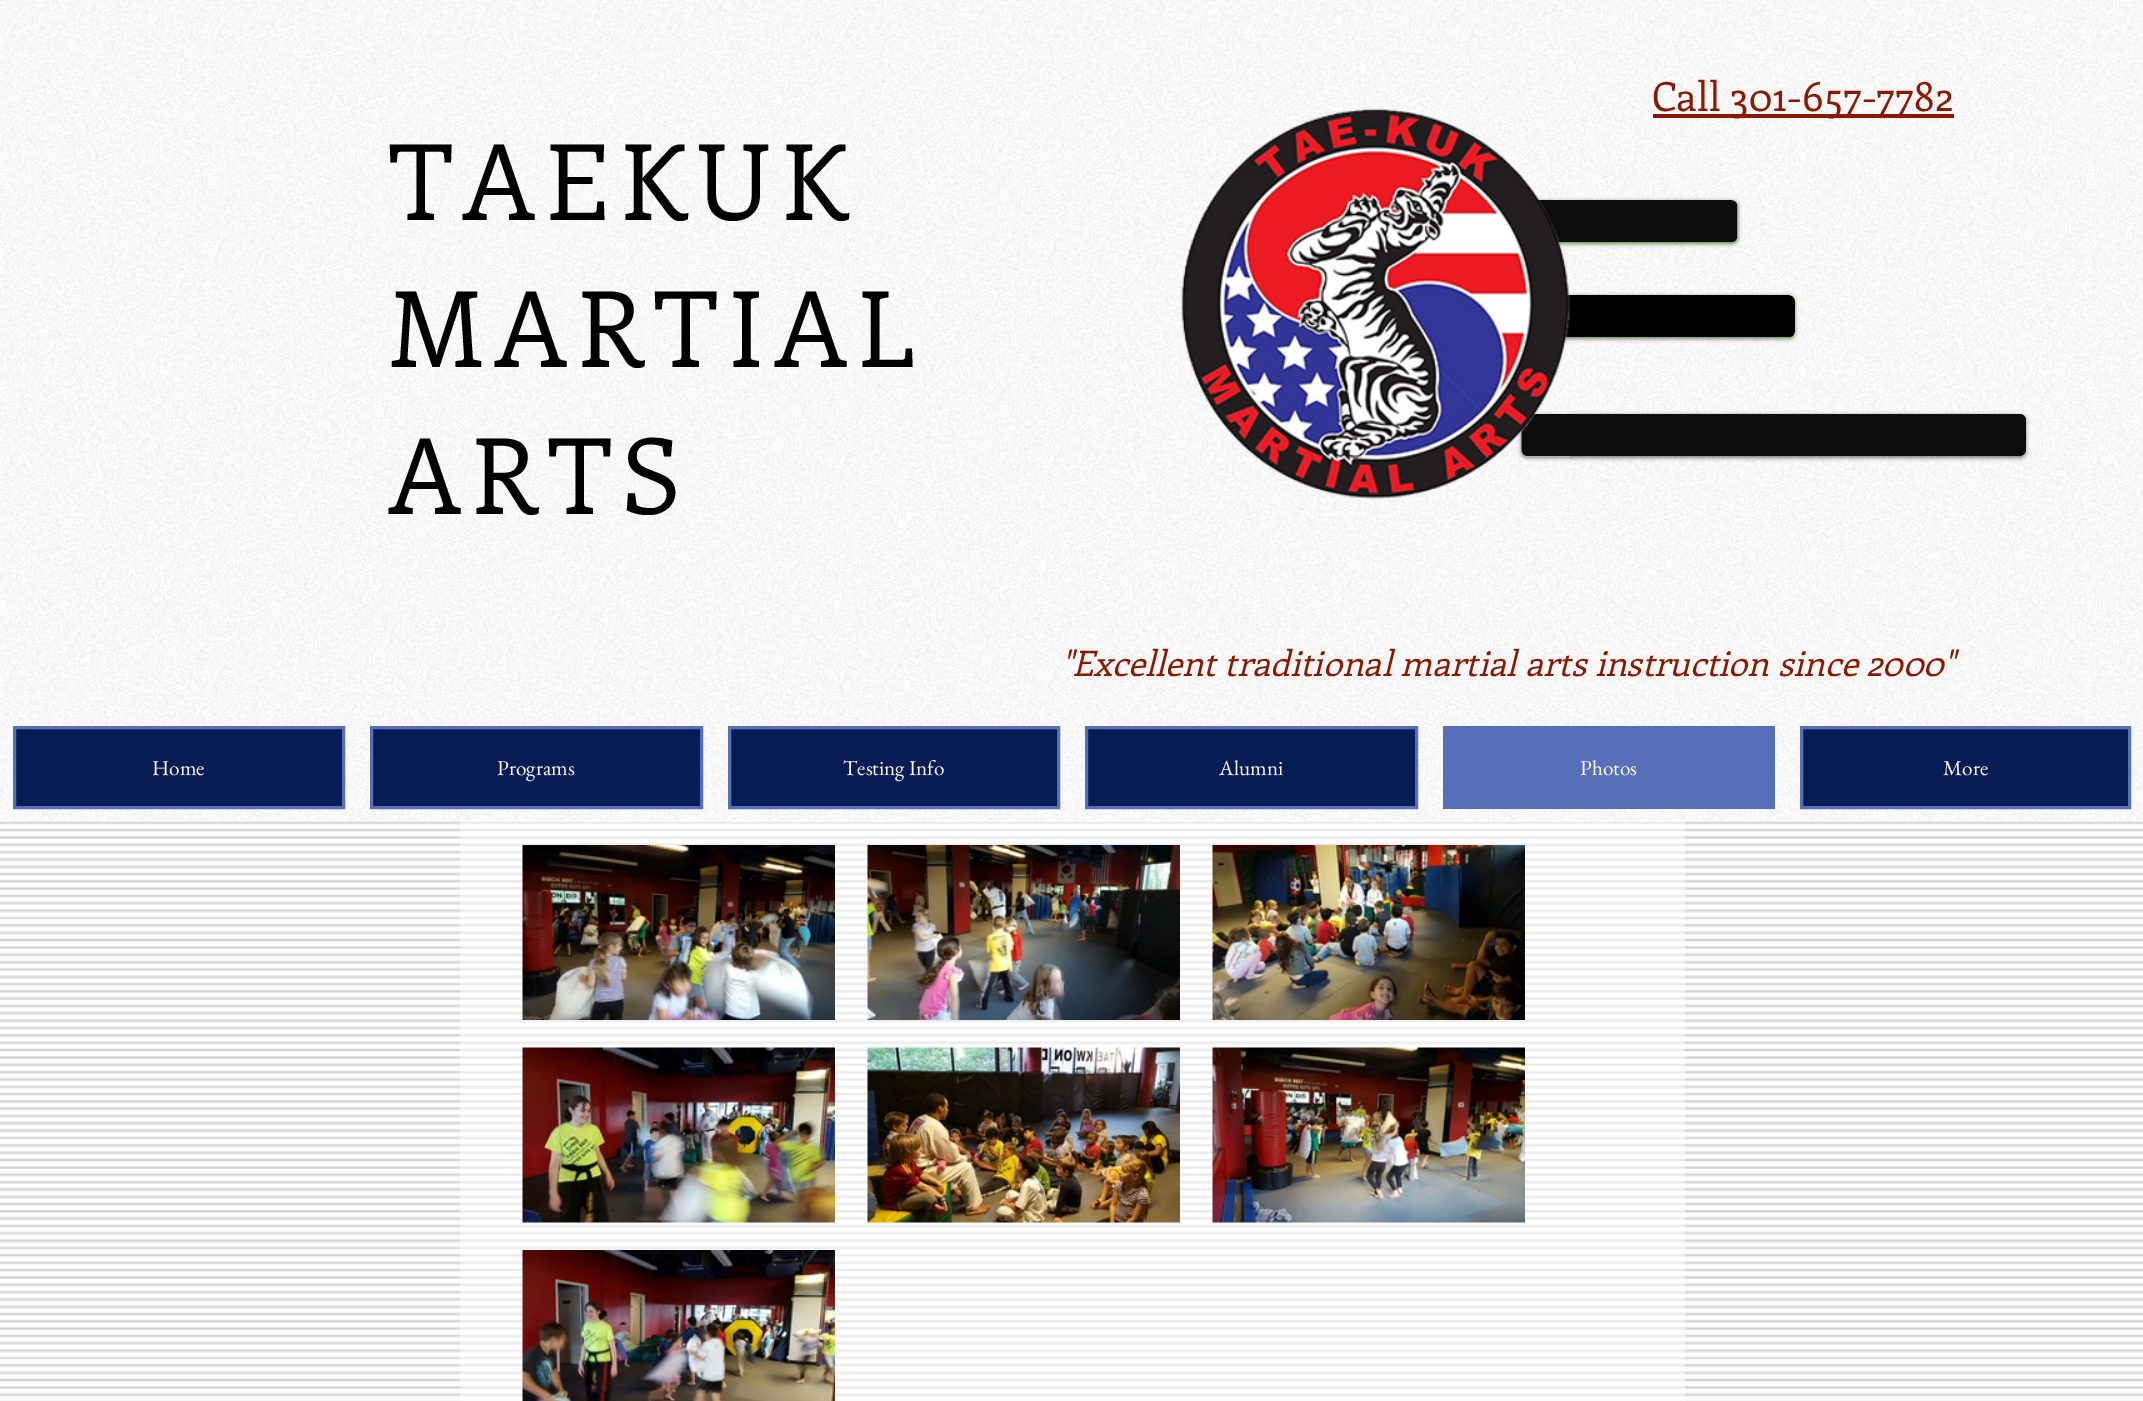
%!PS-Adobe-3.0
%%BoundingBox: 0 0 2143 1401
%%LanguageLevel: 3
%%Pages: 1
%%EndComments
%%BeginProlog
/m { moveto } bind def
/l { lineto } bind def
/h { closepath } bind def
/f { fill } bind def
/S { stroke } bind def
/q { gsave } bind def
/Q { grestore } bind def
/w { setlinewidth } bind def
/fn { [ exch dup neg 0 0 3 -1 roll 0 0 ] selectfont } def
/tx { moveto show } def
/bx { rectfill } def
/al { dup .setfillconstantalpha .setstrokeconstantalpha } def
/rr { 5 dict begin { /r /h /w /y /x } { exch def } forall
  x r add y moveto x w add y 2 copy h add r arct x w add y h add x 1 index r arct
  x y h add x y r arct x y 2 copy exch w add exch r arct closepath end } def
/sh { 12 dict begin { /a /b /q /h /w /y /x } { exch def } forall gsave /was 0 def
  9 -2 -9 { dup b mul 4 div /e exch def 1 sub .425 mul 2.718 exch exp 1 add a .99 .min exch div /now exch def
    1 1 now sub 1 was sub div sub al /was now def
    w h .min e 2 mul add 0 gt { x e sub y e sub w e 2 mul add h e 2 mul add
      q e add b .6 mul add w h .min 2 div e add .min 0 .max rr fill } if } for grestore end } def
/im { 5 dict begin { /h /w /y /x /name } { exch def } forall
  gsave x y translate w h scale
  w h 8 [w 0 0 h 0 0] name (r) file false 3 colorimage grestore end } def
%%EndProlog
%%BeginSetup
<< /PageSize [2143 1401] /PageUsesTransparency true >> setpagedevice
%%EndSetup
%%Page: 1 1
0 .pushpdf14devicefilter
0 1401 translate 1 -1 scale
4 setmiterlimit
1 setgray
0 0 2143 1401 bx
(image0.raw) 0 0 2143 820 im
0.553 0.09 0 setrgbcolor
1653 114 301 4 bx
/Enriqueta-Regular 40 fn
(Call 301-657-7782) 1652 111 tx
/Enriqueta-Regular 105 fn
0 setgray
389 220 m 10.5 0 (TAEKUK) ashow
389 367 m 10.5 0 (MARTIAL) ashow
389 514 m 10.5 0 (ARTS) ashow
1258 201 480 43 6 2 0.5 sh
0.537 0.749 0.141 setrgbcolor
1258 200 480 43 6 rr f
(image2.raw) 1537 200 201 43 im
0 setgray
1315 296 480 43 6 2 0.5 sh
0.537 0.749 0.141 setrgbcolor
1315 295 480 43 6 rr f
(image3.raw) 1564 295 231 43 im
0 setgray
1521 415 505 43 6 2 0.5 sh
0.537 0.749 0.141 setrgbcolor
1521 414 505 42 6 rr f
(image4.raw) 1521 414 505 42 im
(image1.raw) 1181 108 389 391 im
/Enriqueta-Italic 35 fn
0.553 0.09 0 setrgbcolor
("Excellent traditional martial arts instruction since 2000") 1062 676 tx
0.027 0.106 0.333 setrgbcolor
14.5 727.5 m 343.5 727.5 l 343.5 807.5 l 14.5 807.5 l h q f Q
0.337 0.435 0.722 setrgbcolor
3 w
S
/EBGaramond-Regular 21.25 fn
1 setgray
(Home) 152 775 tx
0.027 0.106 0.333 setrgbcolor
371.5 727.5 m 701.5 727.5 l 701.5 807.5 l 371.5 807.5 l h q f Q
0.337 0.435 0.722 setrgbcolor
S
1 setgray
(Programs) 497 775 tx
0.027 0.106 0.333 setrgbcolor
729.5 727.5 m 1058.5 727.5 l 1058.5 807.5 l 729.5 807.5 l h q f Q
0.337 0.435 0.722 setrgbcolor
S
1 setgray
(Testing Info) 843 775 tx
0.027 0.106 0.333 setrgbcolor
1086.5 727.5 m 1416.5 727.5 l 1416.5 807.5 l 1086.5 807.5 l h q f Q
0.337 0.435 0.722 setrgbcolor
S
1 setgray
(Alumni) 1219 775 tx
0.337 0.435 0.722 setrgbcolor
1443 726 332 83 bx
1 setgray
(Photos) 1580 775 tx
0.027 0.106 0.333 setrgbcolor
1801.5 727.5 m 2129.5 727.5 l 2129.5 807.5 l 1801.5 807.5 l h q f Q
0.337 0.435 0.722 setrgbcolor
S
1 setgray
(More) 1943 775 tx
(image12.raw) 0 821 2143 580 im
0.5 al
460 821 1225 580 bx
1 al
(image5.raw) 522 845 313 175 im
(image6.raw) 867 845 313 175 im
(image7.raw) 1212 845 313 175 im
(image8.raw) 522 1047 313 176 im
(image9.raw) 867 1047 313 176 im
(image10.raw) 1212 1047 313 176 im
(image11.raw) 522 1250 313 151 im
.poppdf14devicefilter showpage
%%EOF
